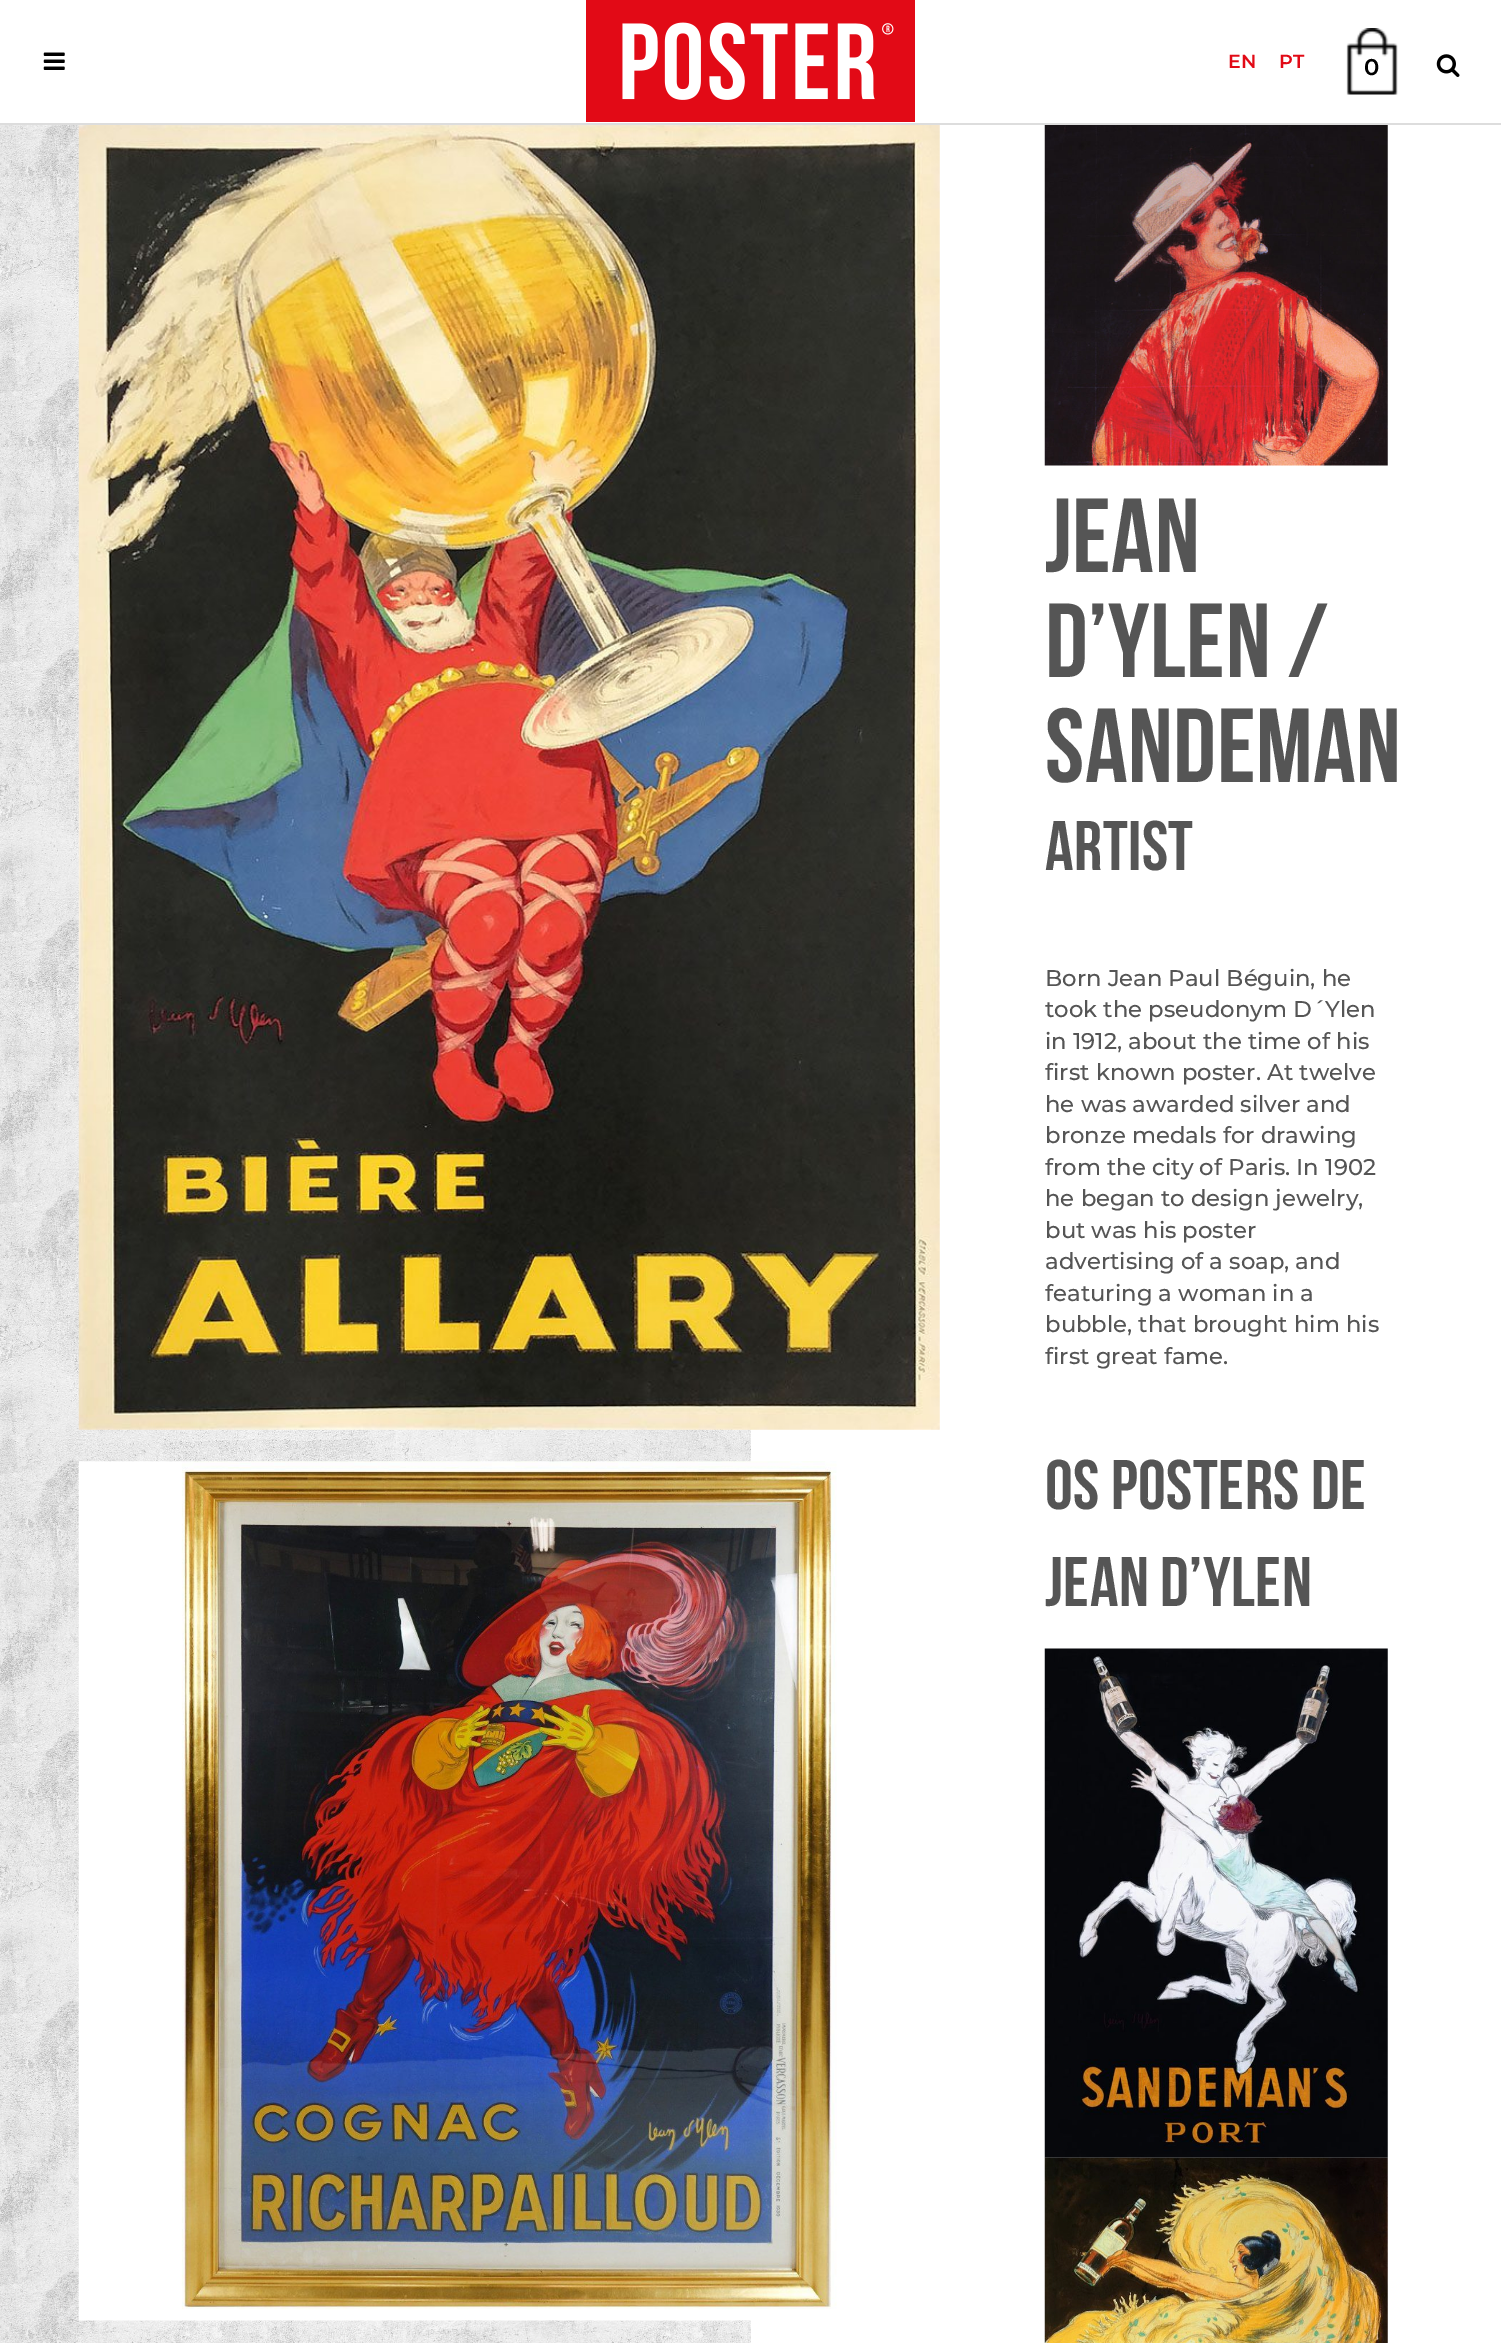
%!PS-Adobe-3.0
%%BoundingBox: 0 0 1501 2343
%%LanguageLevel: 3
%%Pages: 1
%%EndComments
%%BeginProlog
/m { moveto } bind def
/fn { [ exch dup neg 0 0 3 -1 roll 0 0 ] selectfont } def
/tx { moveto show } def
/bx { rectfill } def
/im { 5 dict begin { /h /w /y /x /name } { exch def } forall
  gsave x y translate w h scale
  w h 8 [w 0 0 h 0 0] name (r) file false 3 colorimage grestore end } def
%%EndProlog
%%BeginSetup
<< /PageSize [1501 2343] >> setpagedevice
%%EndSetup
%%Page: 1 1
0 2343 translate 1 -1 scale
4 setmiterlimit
1 setgray
0 0 1501 2343 bx
0.867 setgray
0 123 1501 2 bx
(image0.raw) 43 52 22 18 im
(image1.raw) 586 0 329 122 im
/Montserrat-SemiBold 19 fn
0.886 0.039 0.086 setrgbcolor
1228 68 m 0.5 0 (EN) ashow
1279 68 m 0.5 0 (PT) ashow
(image2.raw) 1346 28 52 67 im
/Montserrat-SemiBold 22.75 fn
0 setgray
(0) 1364 75 tx
(image3.raw) 1436 54 24 23 im
(image4.raw) 0 125 751 2218 im
(image5.raw) 78 125 862 1305 im
(image6.raw) 78 1461 759 860 im
(image7.raw) 1044 125 344 341 im
/BebasNeue-Regular 105 fn
0.333 setgray
1045 572 m 0.5 0 (JEAN) ashow
1045 677 m 0.5 0 (D’YLEN /) ashow
1045 782 m 0.5 0 (SANDEMAN) ashow
/BebasNeue-Regular 70 fn
1045 870 m 0.5 0 (ARTIST) ashow
/Montserrat-Medium 22.75 fn
(Born Jean Paul Béguin, he) 1045 986 tx
(took the pseudonym D´Ylen) 1045 1017 tx
(in 1912, about the time of his) 1045 1049 tx
(first known poster. At twelve) 1045 1080 tx
(he was awarded silver and) 1045 1112 tx
(bronze medals for drawing) 1045 1143 tx
(from the city of Paris. In 1902) 1045 1175 tx
(he began to design jewelry,) 1045 1206 tx
(but was his poster) 1045 1238 tx
(advertising of a soap, and) 1045 1269 tx
(featuring a woman in a) 1045 1301 tx
(bubble, that brought him his) 1045 1332 tx
(first great fame.) 1045 1364 tx
/BebasNeue-Regular 70 fn
1045 1509 m 0.5 0 (OS POSTERS DE) ashow
1045 1606 m 0.5 0 (JEAN D’YLEN) ashow
(image8.raw) 1044 1648 344 510 im
(image9.raw) 1044 2157 344 186 im
showpage
%%EOF
